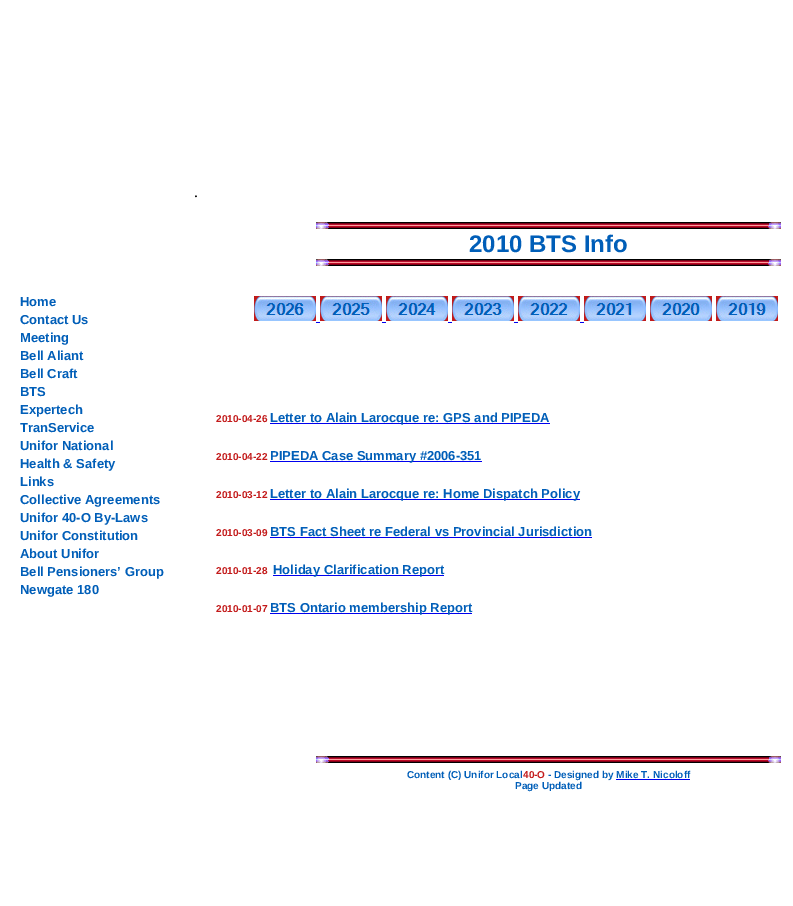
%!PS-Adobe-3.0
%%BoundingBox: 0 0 793 906
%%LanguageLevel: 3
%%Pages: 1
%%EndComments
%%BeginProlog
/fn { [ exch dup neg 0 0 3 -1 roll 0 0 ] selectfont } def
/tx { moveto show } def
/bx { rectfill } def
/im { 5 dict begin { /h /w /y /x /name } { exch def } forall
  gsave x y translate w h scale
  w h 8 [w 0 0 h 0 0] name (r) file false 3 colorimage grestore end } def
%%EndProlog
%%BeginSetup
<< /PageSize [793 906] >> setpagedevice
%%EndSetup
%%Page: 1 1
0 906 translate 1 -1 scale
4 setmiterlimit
1 setgray
0 0 793 906 bx
/LiberationSerif-Regular 16 fn
0 setgray
(.) 194 197 tx
/LiberationSans-Bold 13 fn
0 0.369 0.722 setrgbcolor
(Home) 20 306 tx
(Contact Us) 20 324 tx
(Meeting) 20 342 tx
(Bell Aliant) 20 360 tx
(Bell Craft) 20 378 tx
(BTS) 20 396 tx
(Expertech) 20 414 tx
(TranService) 20 432 tx
(Unifor National) 20 450 tx
(Health & Safety) 20 468 tx
(Links) 20 486 tx
(Collective Agreements) 20 504 tx
(Unifor 40-O By-Laws) 20 522 tx
(Unifor Constitution) 20 540 tx
(About Unifor) 20 558 tx
(Bell Pensioners’ Group) 20 576 tx
(Newgate 180) 20 594 tx
(image0.raw) 316 222 465 7 im
/LiberationSans-Bold 24 fn
(2010 BTS Info) 469 252 tx
(image0.raw) 316 259 465 7 im
(image1.raw) 254 296 62 25 im
(image2.raw) 320 296 62 25 im
(image3.raw) 386 296 62 25 im
(image4.raw) 452 296 62 25 im
(image5.raw) 518 296 62 25 im
(image6.raw) 584 296 62 25 im
(image7.raw) 650 296 62 25 im
(image8.raw) 716 296 62 25 im
0 0 0.933 setrgbcolor
316 322 4 1 bx
382 322 4 1 bx
448 322 4 1 bx
514 322 4 1 bx
580 322 4 1 bx
/LiberationSans-Bold 10 fn
0.765 0.102 0.102 setrgbcolor
(2010-04-26) 216 422 tx
0 0 0.933 setrgbcolor
270 423 280 1 bx
/LiberationSans-Bold 13 fn
0 0.369 0.722 setrgbcolor
(Letter to Alain Larocque re: GPS and PIPEDA) 270 422 tx
/LiberationSans-Bold 10 fn
0.765 0.102 0.102 setrgbcolor
(2010-04-22) 216 460 tx
0 0 0.933 setrgbcolor
270 461 212 1 bx
/LiberationSans-Bold 13 fn
0 0.369 0.722 setrgbcolor
(PIPEDA Case Summary #2006-351) 270 460 tx
/LiberationSans-Bold 10 fn
0.765 0.102 0.102 setrgbcolor
(2010-03-12) 216 498 tx
0 0 0.933 setrgbcolor
270 499 310 1 bx
/LiberationSans-Bold 13 fn
0 0.369 0.722 setrgbcolor
(Letter to Alain Larocque re: Home Dispatch Policy) 270 498 tx
/LiberationSans-Bold 10 fn
0.765 0.102 0.102 setrgbcolor
(2010-03-09) 216 536 tx
/LiberationSans-Bold 13 fn
0 0.369 0.722 setrgbcolor
(BTS Fact Sheet re Federal vs Provincial Jurisdiction) 270 536 tx
0 0 0.933 setrgbcolor
270 537 322 1 bx
/LiberationSans-Bold 10 fn
0.765 0.102 0.102 setrgbcolor
(2010-01-28) 216 574 tx
0 0 0.933 setrgbcolor
273 575 171 1 bx
/LiberationSans-Bold 13 fn
0 0.369 0.722 setrgbcolor
(Holiday Clarification Report) 273 574 tx
/LiberationSans-Bold 10 fn
0.765 0.102 0.102 setrgbcolor
(2010-01-07) 216 612 tx
0 0 0.933 setrgbcolor
270 613 202 1 bx
/LiberationSans-Bold 13 fn
0 0.369 0.722 setrgbcolor
(BTS Ontario membership Report) 270 612 tx
(image0.raw) 316 756 465 7 im
/LiberationSans-Bold 10 fn
(Content \(C\) Unifor Local) 407 778 tx
0.765 0.102 0.102 setrgbcolor
(40-O) 523 778 tx
0 0.369 0.722 setrgbcolor
(- Designed by Mike T. Nicoloff) 548 778 tx
0 0 0.933 setrgbcolor
616 779 74 1 bx
0 0.369 0.722 setrgbcolor
(Page Updated) 515 789 tx
showpage
%%EOF
